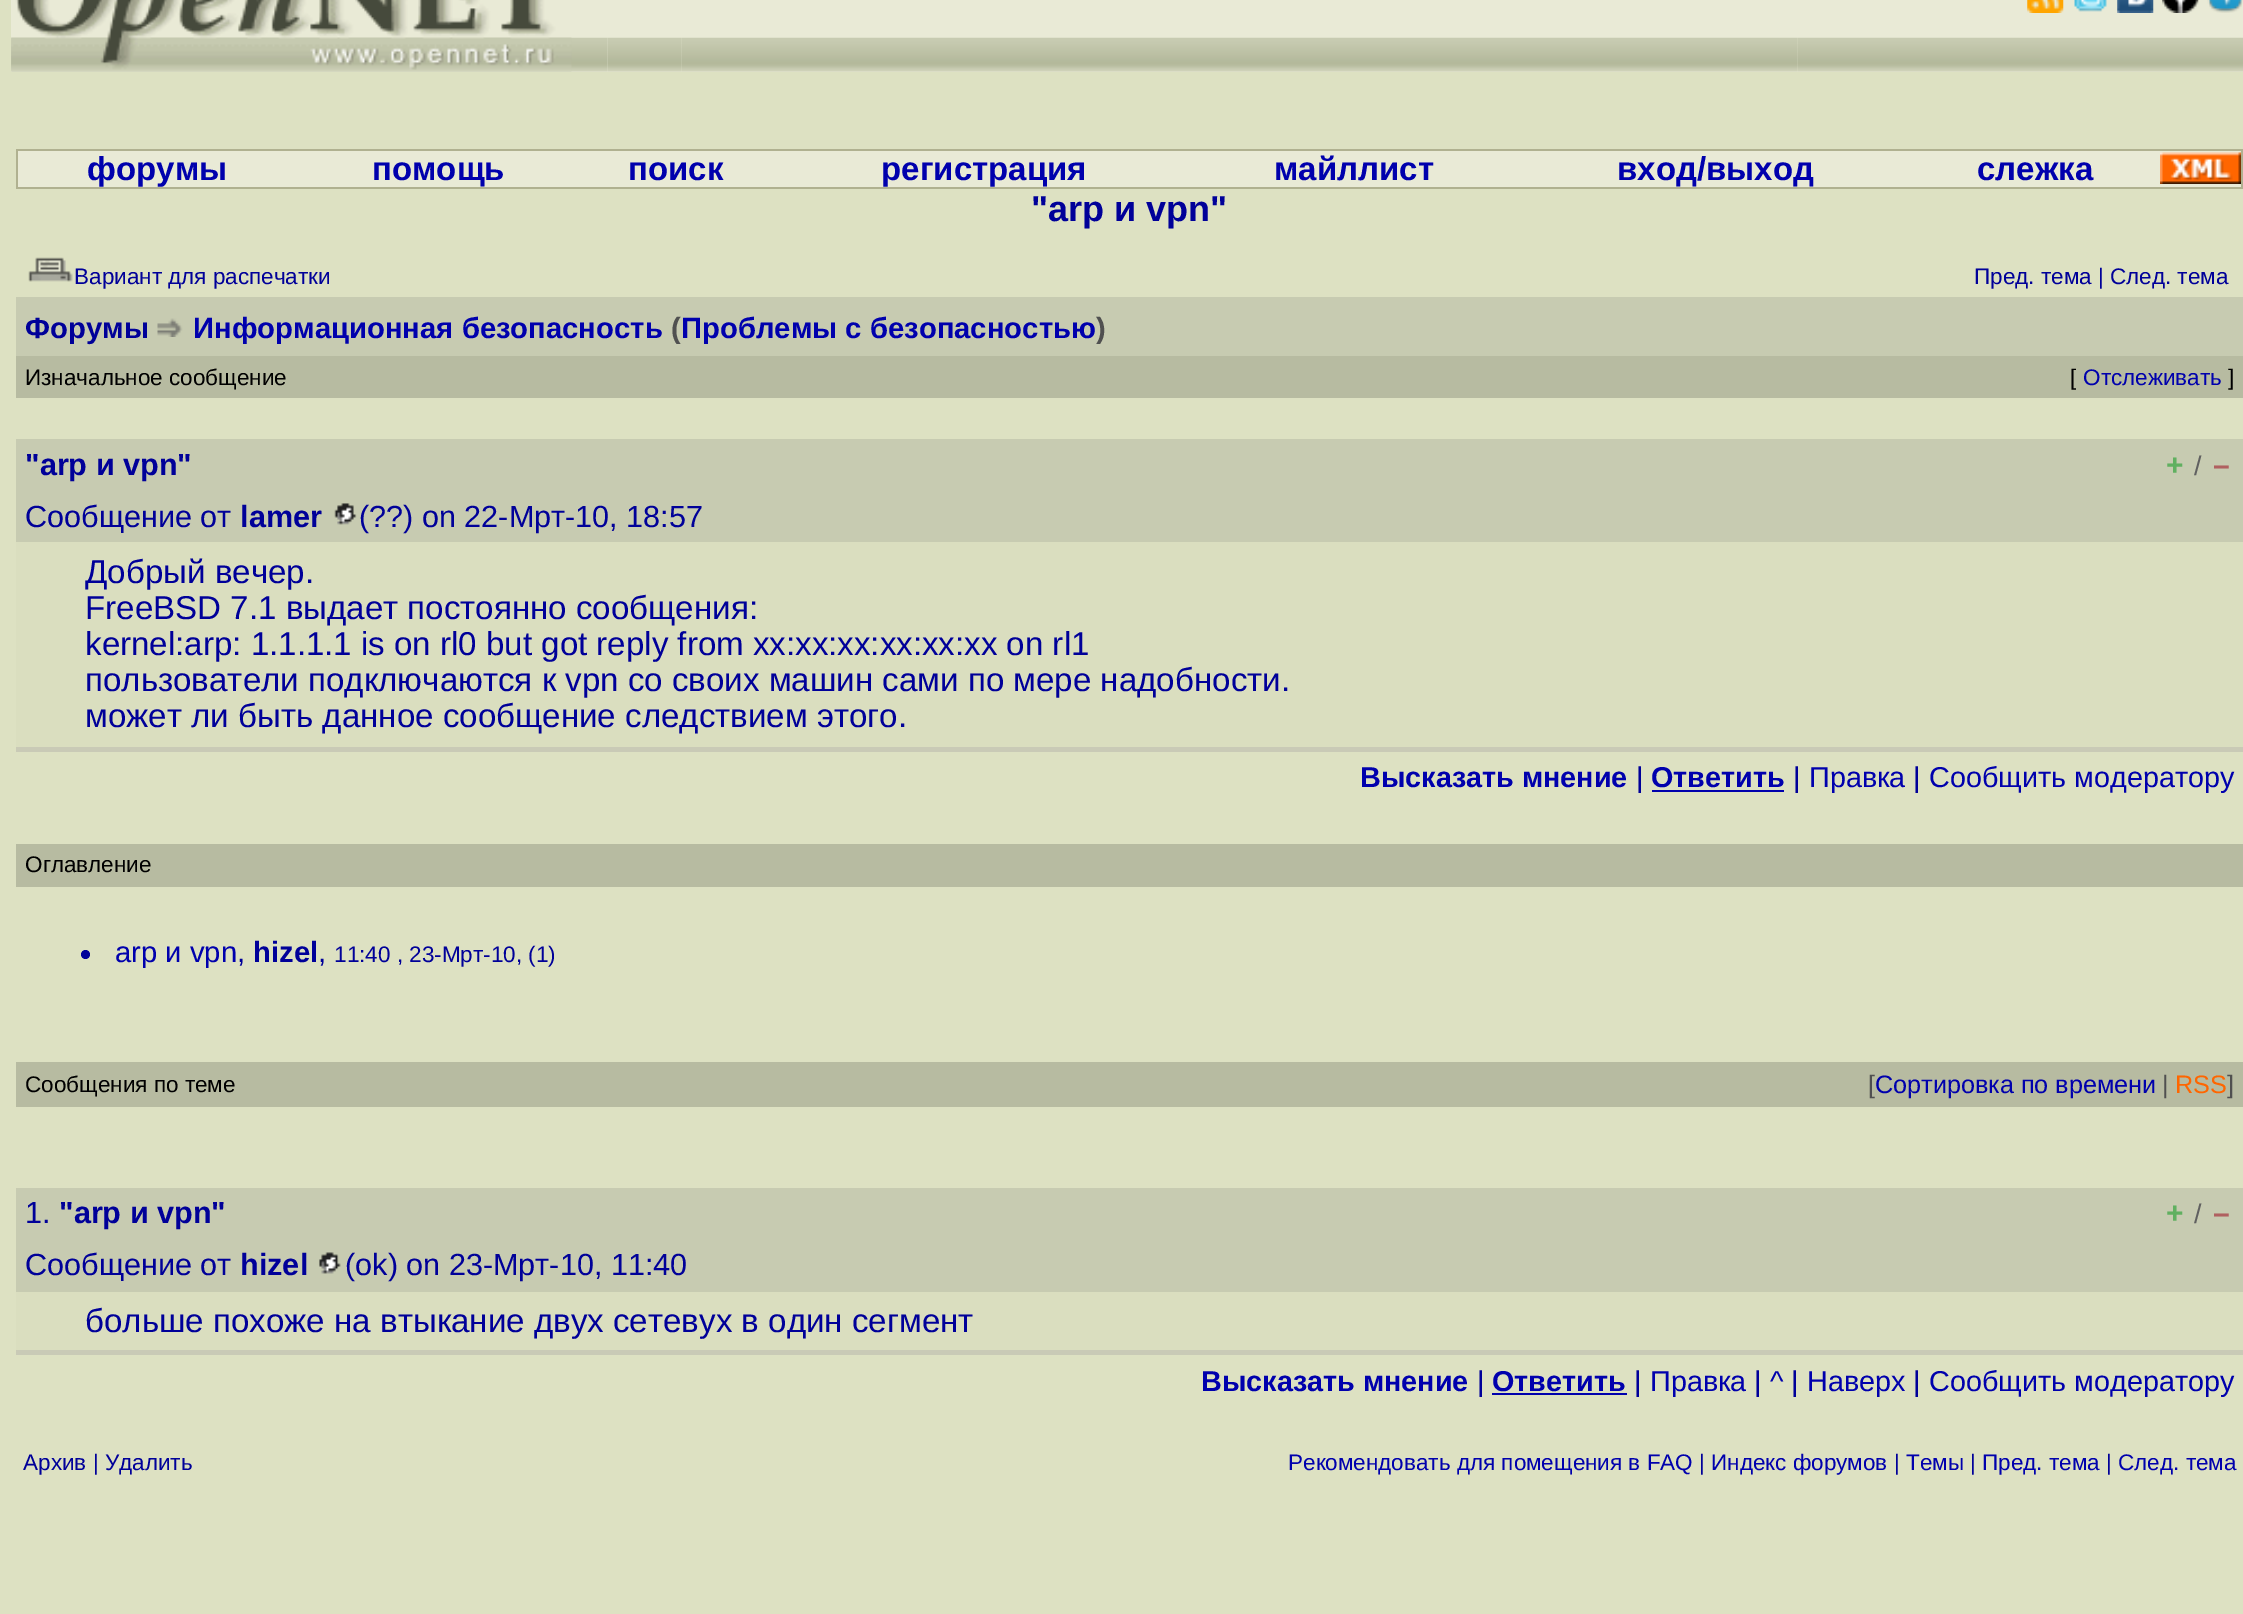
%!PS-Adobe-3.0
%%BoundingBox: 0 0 2243 1614
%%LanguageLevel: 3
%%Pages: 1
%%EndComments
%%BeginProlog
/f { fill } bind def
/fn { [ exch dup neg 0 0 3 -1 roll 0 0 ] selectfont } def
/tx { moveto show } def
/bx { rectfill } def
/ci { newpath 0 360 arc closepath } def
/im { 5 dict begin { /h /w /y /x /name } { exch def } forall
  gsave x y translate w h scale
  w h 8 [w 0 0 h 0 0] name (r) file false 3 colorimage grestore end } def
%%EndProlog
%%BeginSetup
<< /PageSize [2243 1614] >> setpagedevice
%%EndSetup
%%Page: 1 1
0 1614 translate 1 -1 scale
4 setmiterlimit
0.867 0.882 0.761 setrgbcolor
0 0 2243 1614 bx
0.914 0.918 0.839 setrgbcolor
11 0 2232 72 bx
(image0.raw) 11 37 597 35 im
(image1.raw) 11 0 561 72 im
(image2.raw) 607 37 75 35 im
(image3.raw) 681 37 1117 35 im
(image4.raw) 1797 37 446 35 im
(image5.raw) 2027 0 37 13 im
(image6.raw) 2074 0 33 12 im
(image7.raw) 2117 0 37 13 im
(image8.raw) 2162 0 37 13 im
(image9.raw) 2207 0 36 13 im
0.69 0.694 0.565 setrgbcolor
16 149 2227 40 bx
0.914 0.918 0.839 setrgbcolor
18 151 2223 36 bx
/LiberationSans-Bold 33 fn
0 0 0.678 setrgbcolor
(форумы) 87 180 tx
(помощь) 372 180 tx
(поиск) 628 180 tx
(регистрация) 881 180 tx
(майллист) 1274 180 tx
(вход/выход) 1617 180 tx
(слежка) 1977 180 tx
(image10.raw) 2160 152 81 32 im
/LiberationSans-Bold 36 fn
0 0 0.6 setrgbcolor
("arp и vpn") 1031 221 tx
(image11.raw) 28 257 45 25 im
/LiberationSans-Regular 22.5 fn
(Вариант для распечатки) 74 284 tx
(Пред. тема | След. тема) 1974 284 tx
0.78 0.796 0.694 setrgbcolor
16 297 2227 59 bx
/LiberationSans-Bold 29.25 fn
0 0 0.6 setrgbcolor
(Форумы) 25 338 tx
(image12.raw) 157 318 26 19 im
0 0 0.678 setrgbcolor
(Информационная безопасность) 193 338 tx
0.314 setgray
(\() 671 338 tx
0 0 0.678 setrgbcolor
(Проблемы с безопасностью) 681 338 tx
0.314 setgray
(\)) 1096 338 tx
0.718 0.733 0.631 setrgbcolor
16 356 2227 42 bx
/LiberationSans-Regular 22.5 fn
0 setgray
(Изначальное сообщение) 25 385 tx
([) 2070 385 tx
0 0 0.678 setrgbcolor
(Отслеживать) 2083 385 tx
0 setgray
(]) 2228 385 tx
0.78 0.796 0.694 setrgbcolor
16 439 2227 103 bx
/LiberationSans-Bold 30.6 fn
0 0 0.6 setrgbcolor
("arp и vpn") 25 475 tx
/LiberationSans-Bold 30 fn
0.376 0.69 0.376 setrgbcolor
(+) 2166 475 tx
/LiberationSans-Regular 27 fn
0.376 setgray
(/) 2194 475 tx
/LiberationSans-Bold 30 fn
0.69 0.376 0.376 setrgbcolor
(–) 2213 475 tx
/LiberationSans-Regular 30.6 fn
0 0 0.6 setrgbcolor
(Сообщение от) 25 527 tx
/LiberationSans-Bold 30.6 fn
(lamer) 240 527 tx
(image13.raw) 334 503 23 22 im
/LiberationSans-Regular 30.6 fn
(\(??\) on 22-Мрт-10, 18:57) 359 527 tx
0.855 0.871 0.749 setrgbcolor
16 542 2227 205 bx
/LiberationSans-Regular 33.1 fn
0 0 0.6 setrgbcolor
(Добрый вечер.) 85 583 tx
(FreeBSD 7.1 выдает постоянно сообщения:) 85 619 tx
(kernel:arp: 1.1.1.1 is on rl0 but got reply from xx:xx:xx:xx:xx:xx on rl1) 85 655 tx
(пользователи подключаются к vpn со своих машин сами по мере надобности.) 85 691 tx
(может ли быть данное сообщение следствием этого.) 85 727 tx
0.788 0.792 0.714 setrgbcolor
16 747 2227 5 bx
/LiberationSans-Bold 28.75 fn
0 0 0.678 setrgbcolor
(Высказать мнение) 1360 787 tx
/LiberationSans-Regular 28.75 fn
0 0 0.6 setrgbcolor
(|) 1636 787 tx
/LiberationSans-Bold 28.75 fn
0 0 0.678 setrgbcolor
(Ответить) 1651 787 tx
1652 790 132 2 bx
/LiberationSans-Regular 28.75 fn
0 0 0.6 setrgbcolor
(|) 1793 787 tx
0 0 0.678 setrgbcolor
(Правка) 1809 787 tx
0 0 0.6 setrgbcolor
(|) 1913 787 tx
0 0 0.678 setrgbcolor
(Cообщить модератору) 1929 787 tx
0.718 0.733 0.631 setrgbcolor
16 844 2227 43 bx
/LiberationSans-Regular 22.5 fn
0 setgray
(Оглавление) 25 872 tx
0 0 0.6 setrgbcolor
85.5 954.5 4.5 ci f
/LiberationSans-Regular 29.25 fn
0 0 0.678 setrgbcolor
(arp и vpn) 115 962 tx
/LiberationSans-Bold 29.25 fn
0 0 0.6 setrgbcolor
(hizel) 253 962 tx
/LiberationSans-Regular 22.5 fn
(11:40 , 23-Мрт-10, \(1\)) 334 962 tx
/LiberationSans-Regular 29.25 fn
(,) 237 962 tx
(,) 318 962 tx
0.718 0.733 0.631 setrgbcolor
16 1062 2227 45 bx
/LiberationSans-Regular 22.5 fn
0 setgray
(Сообщения по теме) 25 1092 tx
/LiberationSans-Regular 25.25 fn
0.314 setgray
([) 1868 1093 tx
0 0 0.678 setrgbcolor
(Сортировка по времени) 1875 1093 tx
0.314 setgray
(|) 2162 1093 tx
1 0.4 0 setrgbcolor
(RSS) 2175 1093 tx
0.314 setgray
(]) 2227 1093 tx
0.78 0.796 0.694 setrgbcolor
16 1188 2227 104 bx
/LiberationSans-Regular 30.6 fn
0 0 0.6 setrgbcolor
(1.) 25 1223 tx
/LiberationSans-Bold 30.6 fn
("arp и vpn") 59 1223 tx
/LiberationSans-Bold 30 fn
0.376 0.69 0.376 setrgbcolor
(+) 2166 1223 tx
/LiberationSans-Regular 27 fn
0.376 setgray
(/) 2194 1223 tx
/LiberationSans-Bold 30 fn
0.69 0.376 0.376 setrgbcolor
(–) 2213 1223 tx
/LiberationSans-Regular 30.6 fn
0 0 0.6 setrgbcolor
(Сообщение от) 25 1275 tx
/LiberationSans-Bold 30.6 fn
(hizel) 240 1275 tx
(image14.raw) 319 1252 22 22 im
/LiberationSans-Regular 30.6 fn
(\(ok\) on 23-Мрт-10, 11:40) 345 1275 tx
0.855 0.871 0.749 setrgbcolor
16 1292 2227 58 bx
/LiberationSans-Regular 33.1 fn
0 0 0.6 setrgbcolor
(больше похоже на втыкание двух сетевух в один сегмент) 85 1332 tx
0.788 0.792 0.714 setrgbcolor
16 1350 2227 5 bx
/LiberationSans-Bold 28.75 fn
0 0 0.678 setrgbcolor
(Высказать мнение) 1201 1391 tx
/LiberationSans-Regular 28.75 fn
0 0 0.6 setrgbcolor
(|) 1477 1391 tx
/LiberationSans-Bold 28.75 fn
0 0 0.678 setrgbcolor
(Ответить) 1492 1391 tx
1492 1393 135 2 bx
/LiberationSans-Regular 28.75 fn
0 0 0.6 setrgbcolor
(|) 1634 1391 tx
0 0 0.678 setrgbcolor
(Правка) 1650 1391 tx
0 0 0.6 setrgbcolor
(|) 1754 1391 tx
0 0 0.678 setrgbcolor
(^) 1770 1391 tx
0 0 0.6 setrgbcolor
(|) 1791 1391 tx
0 0 0.678 setrgbcolor
(Наверх) 1807 1391 tx
0 0 0.6 setrgbcolor
(|) 1913 1391 tx
0 0 0.678 setrgbcolor
(Cообщить модератору) 1929 1391 tx
/LiberationSans-Regular 22.5 fn
0 0 0.6 setrgbcolor
(Архив | Удалить) 23 1470 tx
0 0 0.678 setrgbcolor
(Рекомендовать для помещения в FAQ) 1288 1470 tx
0 0 0.6 setrgbcolor
(|) 1699 1470 tx
0 0 0.678 setrgbcolor
(Индекс форумов) 1711 1470 tx
0 0 0.6 setrgbcolor
(|) 1894 1470 tx
0 0 0.678 setrgbcolor
(Темы) 1906 1470 tx
0 0 0.6 setrgbcolor
(|) 1970 1470 tx
0 0 0.678 setrgbcolor
(Пред. тема) 1982 1470 tx
0 0 0.6 setrgbcolor
(|) 2106 1470 tx
0 0 0.678 setrgbcolor
(След. тема) 2118 1470 tx
showpage
%%EOF
